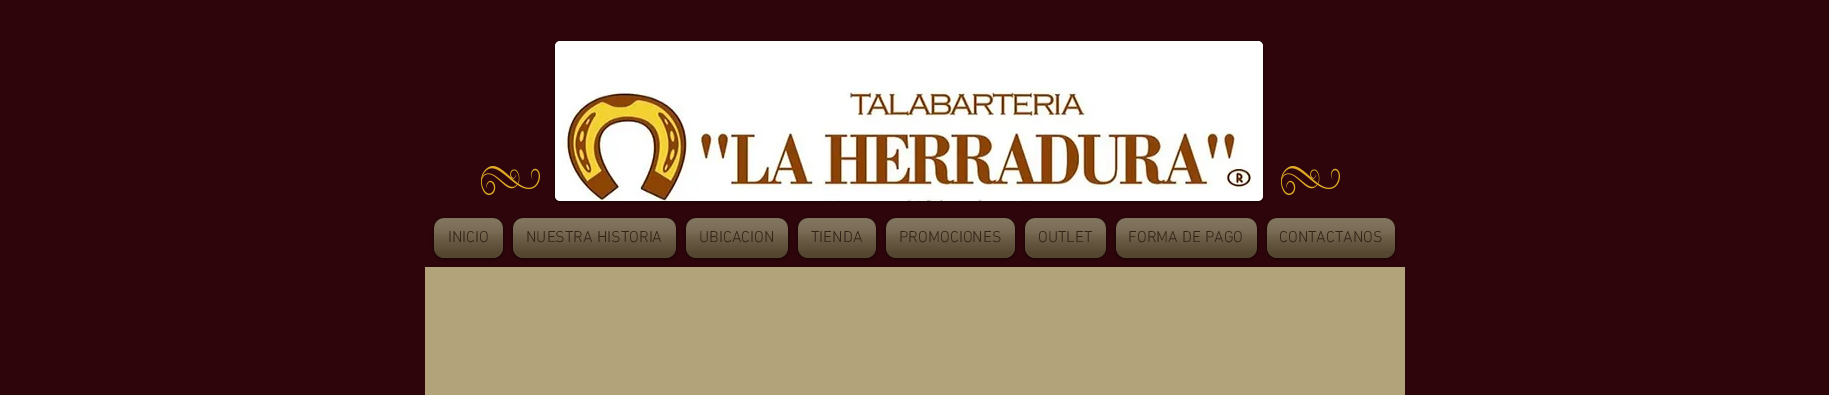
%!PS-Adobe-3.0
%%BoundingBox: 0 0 1829 395
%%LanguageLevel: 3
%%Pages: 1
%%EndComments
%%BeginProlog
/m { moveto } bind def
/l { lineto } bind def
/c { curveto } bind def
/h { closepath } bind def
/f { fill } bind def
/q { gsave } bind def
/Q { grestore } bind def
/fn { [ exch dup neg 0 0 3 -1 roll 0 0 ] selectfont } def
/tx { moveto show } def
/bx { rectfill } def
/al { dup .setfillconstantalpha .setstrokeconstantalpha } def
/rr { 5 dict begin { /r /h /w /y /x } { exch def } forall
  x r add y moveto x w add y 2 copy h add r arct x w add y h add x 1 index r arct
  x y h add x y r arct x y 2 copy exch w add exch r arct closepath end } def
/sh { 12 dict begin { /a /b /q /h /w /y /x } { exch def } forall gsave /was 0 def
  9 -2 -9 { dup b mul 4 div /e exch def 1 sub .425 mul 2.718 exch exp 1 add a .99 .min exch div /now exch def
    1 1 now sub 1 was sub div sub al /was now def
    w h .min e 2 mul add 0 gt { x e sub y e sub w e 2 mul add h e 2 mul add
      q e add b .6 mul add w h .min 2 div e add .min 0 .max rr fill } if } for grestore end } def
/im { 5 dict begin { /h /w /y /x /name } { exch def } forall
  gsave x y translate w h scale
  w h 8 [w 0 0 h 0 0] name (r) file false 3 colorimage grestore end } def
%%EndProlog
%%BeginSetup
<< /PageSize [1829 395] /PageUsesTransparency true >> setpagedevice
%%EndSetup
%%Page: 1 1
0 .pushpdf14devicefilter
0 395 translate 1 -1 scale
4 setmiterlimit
0.18 0.02 0.039 setrgbcolor
0 0 1829 395 bx
(image0.raw) 481 166 59 29 im
0 setgray
555 42 708 160 5 1.5 0.5 sh
1 setgray
555 41 708 160 5 rr f
(image1.raw) 555 41 708 160 im
(image0.raw) 1281 166 59 29 im
q
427 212 m 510 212 l 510 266 l 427 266 l h 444 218 m 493 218 l 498.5 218 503 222.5 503 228 c 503 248 l 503 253.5 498.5 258 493 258 c 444 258 l 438.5 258 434 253.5 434 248 c 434 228 l 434 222.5 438.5 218 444 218 c h eoclip newpath
0 setgray
434 219 69 40 10 2 0.6 sh
Q
0.85 al
0.427 0.38 0.255 setrgbcolor
434 218 69 40 10 rr f
1 al
(image2.raw) 434 218 69 33 im
(image3.raw) 434 234 69 24 im
/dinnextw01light-Light 16 fn
0.204 0.133 0.086 setrgbcolor
(INICIO) 448 242 tx
q
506 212 m 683 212 l 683 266 l 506 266 l h 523 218 m 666 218 l 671.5 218 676 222.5 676 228 c 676 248 l 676 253.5 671.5 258 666 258 c 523 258 l 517.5 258 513 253.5 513 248 c 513 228 l 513 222.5 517.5 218 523 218 c h eoclip newpath
0 setgray
513 219 163 40 10 2 0.6 sh
Q
0.85 al
0.427 0.38 0.255 setrgbcolor
513 218 163 40 10 rr f
1 al
(image4.raw) 513 218 163 33 im
(image5.raw) 513 234 163 24 im
0.204 0.133 0.086 setrgbcolor
(NUESTRA HISTORIA) 526 242 tx
q
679 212 m 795 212 l 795 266 l 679 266 l h 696 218 m 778 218 l 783.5 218 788 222.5 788 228 c 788 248 l 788 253.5 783.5 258 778 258 c 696 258 l 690.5 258 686 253.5 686 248 c 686 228 l 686 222.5 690.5 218 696 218 c h eoclip newpath
0 setgray
686 219 102 40 10 2 0.6 sh
Q
0.85 al
0.427 0.38 0.255 setrgbcolor
686 218 102 40 10 rr f
1 al
(image6.raw) 686 218 102 33 im
(image7.raw) 686 234 102 24 im
0.204 0.133 0.086 setrgbcolor
(UBICACION) 699 242 tx
q
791 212 m 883 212 l 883 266 l 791 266 l h 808 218 m 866 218 l 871.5 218 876 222.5 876 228 c 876 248 l 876 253.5 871.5 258 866 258 c 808 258 l 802.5 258 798 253.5 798 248 c 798 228 l 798 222.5 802.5 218 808 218 c h eoclip newpath
0 setgray
798 219 78 40 10 2 0.6 sh
Q
0.85 al
0.427 0.38 0.255 setrgbcolor
798 218 78 40 10 rr f
1 al
(image8.raw) 798 218 78 33 im
(image9.raw) 798 234 78 24 im
0.204 0.133 0.086 setrgbcolor
(TIENDA) 811 242 tx
q
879 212 m 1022 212 l 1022 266 l 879 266 l h 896 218 m 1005 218 l 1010.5 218 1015 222.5 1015 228 c 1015 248 l 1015 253.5 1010.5 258 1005 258 c 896 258 l 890.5 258 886 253.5 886 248 c 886 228 l 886 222.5 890.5 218 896 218 c h eoclip newpath
0 setgray
886 219 129 40 10 2 0.6 sh
Q
0.85 al
0.427 0.38 0.255 setrgbcolor
886 218 129 40 10 rr f
1 al
(image10.raw) 886 218 129 33 im
(image11.raw) 886 234 129 24 im
0.204 0.133 0.086 setrgbcolor
(PROMOCIONES) 899 242 tx
q
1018 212 m 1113 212 l 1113 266 l 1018 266 l h 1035 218 m 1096 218 l 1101.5 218 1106 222.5 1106 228 c 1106 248 l 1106 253.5 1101.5 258 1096 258 c 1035 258 l 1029.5 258 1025 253.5 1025 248 c 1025 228 l 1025 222.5 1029.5 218 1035 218 c h eoclip newpath
0 setgray
1025 219 81 40 10 2 0.6 sh
Q
0.85 al
0.427 0.38 0.255 setrgbcolor
1025 218 81 40 10 rr f
1 al
(image12.raw) 1025 218 81 33 im
(image13.raw) 1025 234 81 24 im
0.204 0.133 0.086 setrgbcolor
(OUTLET) 1038 242 tx
q
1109 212 m 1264 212 l 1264 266 l 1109 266 l h 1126 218 m 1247 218 l 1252.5 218 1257 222.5 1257 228 c 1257 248 l 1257 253.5 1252.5 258 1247 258 c 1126 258 l 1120.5 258 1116 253.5 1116 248 c 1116 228 l 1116 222.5 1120.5 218 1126 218 c h eoclip newpath
0 setgray
1116 219 141 40 10 2 0.6 sh
Q
0.85 al
0.427 0.38 0.255 setrgbcolor
1116 218 141 40 10 rr f
1 al
(image14.raw) 1116 218 141 33 im
(image15.raw) 1116 234 141 24 im
0.204 0.133 0.086 setrgbcolor
(FORMA DE PAGO) 1128 242 tx
q
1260 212 m 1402 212 l 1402 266 l 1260 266 l h 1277 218 m 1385 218 l 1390.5 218 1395 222.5 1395 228 c 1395 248 l 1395 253.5 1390.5 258 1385 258 c 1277 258 l 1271.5 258 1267 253.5 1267 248 c 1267 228 l 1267 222.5 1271.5 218 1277 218 c h eoclip newpath
0 setgray
1267 219 128 40 10 2 0.6 sh
Q
0.85 al
0.427 0.38 0.255 setrgbcolor
1267 218 128 40 10 rr f
1 al
(image16.raw) 1267 218 128 33 im
(image17.raw) 1267 234 128 24 im
0.204 0.133 0.086 setrgbcolor
(CONTACTANOS) 1279 242 tx
0.698 0.639 0.478 setrgbcolor
425 267 980 128 bx
.poppdf14devicefilter showpage
%%EOF
